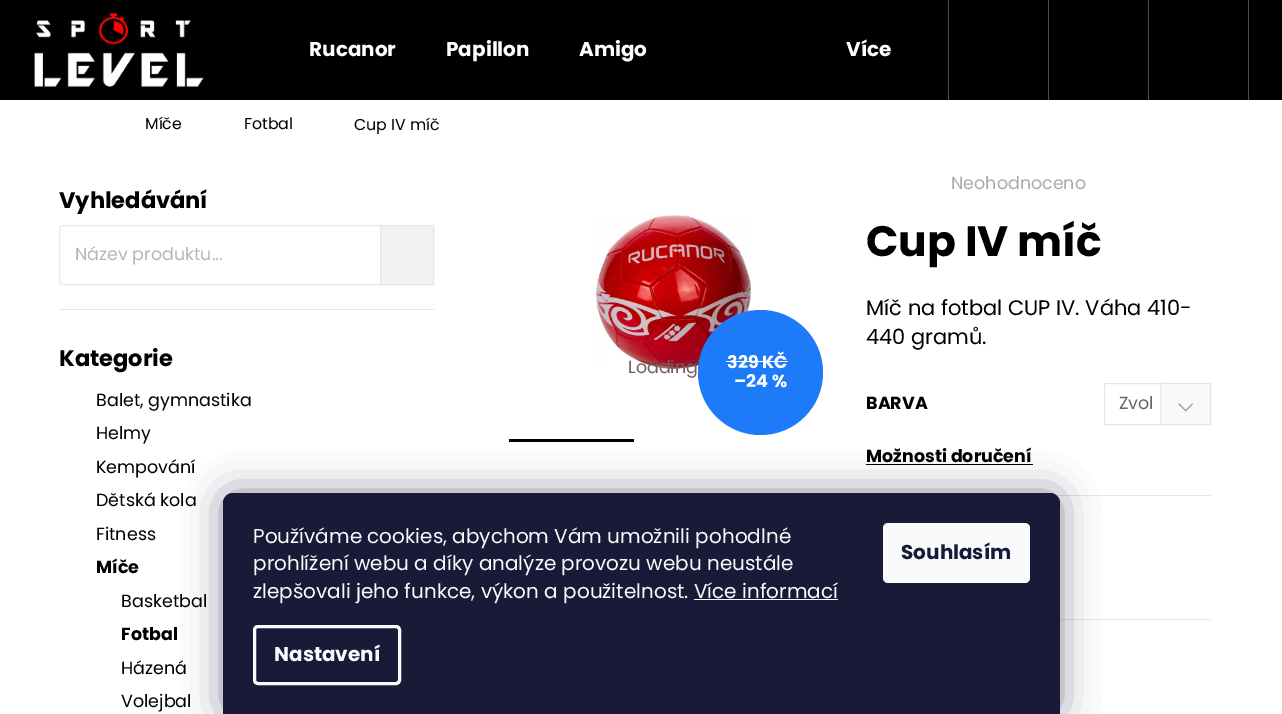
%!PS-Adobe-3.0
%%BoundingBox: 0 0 1282 714
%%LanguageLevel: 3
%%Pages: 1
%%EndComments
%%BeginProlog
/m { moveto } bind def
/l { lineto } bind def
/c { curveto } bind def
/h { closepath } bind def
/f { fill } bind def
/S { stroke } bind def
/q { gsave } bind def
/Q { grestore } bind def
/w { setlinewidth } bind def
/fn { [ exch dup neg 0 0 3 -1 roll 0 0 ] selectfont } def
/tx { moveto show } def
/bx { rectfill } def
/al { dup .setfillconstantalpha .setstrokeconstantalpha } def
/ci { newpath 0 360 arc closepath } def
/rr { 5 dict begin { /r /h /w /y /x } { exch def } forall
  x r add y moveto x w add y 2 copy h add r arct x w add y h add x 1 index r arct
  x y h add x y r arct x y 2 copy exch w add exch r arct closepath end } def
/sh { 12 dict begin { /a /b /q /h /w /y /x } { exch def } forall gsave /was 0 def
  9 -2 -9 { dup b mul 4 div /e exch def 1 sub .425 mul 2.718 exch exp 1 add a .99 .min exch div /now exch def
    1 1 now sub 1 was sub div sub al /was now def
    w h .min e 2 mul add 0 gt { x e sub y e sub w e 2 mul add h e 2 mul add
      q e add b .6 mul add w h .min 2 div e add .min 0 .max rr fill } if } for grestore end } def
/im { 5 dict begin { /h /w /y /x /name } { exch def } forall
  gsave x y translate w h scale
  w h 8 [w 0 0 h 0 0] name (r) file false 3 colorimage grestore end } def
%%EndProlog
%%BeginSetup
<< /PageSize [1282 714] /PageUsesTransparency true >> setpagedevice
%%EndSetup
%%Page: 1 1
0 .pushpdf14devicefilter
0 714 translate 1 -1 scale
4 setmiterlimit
1 setgray
0 0 1282 714 bx
0 setgray
0 0 1282 100 bx
(image0.raw) 34 12 170 75 im
/Poppins-Bold 20 fn
1 setgray
(Rucanor) 309 56 tx
(Papillon) 446 56 tx
(Amigo) 579 56 tx
(Více) 846 56 tx
0.302 setgray
1248 0 1 100 bx
948 0 1 100 bx
1048 0 1 100 bx
1148 0 1 100 bx
/Poppins-Regular 15.75 fn
0 setgray
(Míče) 145 129 tx
(Fotbal) 244 129 tx
(Cup IV míč) 354 130 tx
/Poppins-Bold 22.5 fn
(Vyhledávání) 59 208 tx
0.902 setgray
59.5 225.5 374 59 3.5 rr S
/Poppins-Regular 17.5 fn
0.714 setgray
(Název produktu...) 75 260 tx
0.949 setgray
380.5 225.5 m 433.5 225.5 l 433.5 284.5 l 380.5 284.5 l h q f Q
0.902 setgray
S
59 309 375 1 bx
/Poppins-Bold 22.5 fn
0 setgray
(Kategorie) 59 366 tx
/Poppins-Regular 17.5 fn
(Balet, gymnastika) 96 406 tx
(Helmy) 96 439 tx
(Kempování) 96 473 tx
(Dětská kola) 96 506 tx
(Fitness) 96 540 tx
/Poppins-Bold 17.5 fn
(Míče) 96 573 tx
/Poppins-Regular 17.5 fn
(Basketbal) 121 607 tx
/Poppins-Bold 17.5 fn
(Fotbal) 121 640 tx
/Poppins-Regular 17.5 fn
(Házená) 121 674 tx
(Volejbal) 121 707 tx
(image1.raw) 596 215 155 154 im
0.435 0.365 0.373 setrgbcolor
(Loading) 628 373 tx
0.114 0.478 0.973 setrgbcolor
760.5 372.5 62.5 ci f
/Poppins-Bold 17.5 fn
1 setgray
(329 KČ) 727 368 tx
726 361 62 1 bx
(–24 %) 734 387 tx
0 setgray
509 439 125 3 bx
/Poppins-Regular 17.5 fn
0.667 setgray
(Neohodnoceno) 951 189 tx
/Poppins-Bold 42.5 fn
0 setgray
(Cup IV míč) 866 256 tx
/Poppins-Regular 21 fn
(Míč na fotbal CUP IV. Váha 410-) 866 315 tx
(440 gramů.) 866 344 tx
/Poppins-Bold 17.5 fn
(BARVA) 866 409 tx
(image2.raw) 1160 382 50 42 im
0.902 setgray
1104.5 383.5 106 41 rectstroke
/Poppins-Regular 17.5 fn
0.4 setgray
(Zvol) 1119 409 tx
/Poppins-Bold 17.5 fn
0 setgray
(Možnosti doručení) 866 462 tx
866 464 167 1 bx
0.906 setgray
1056 495 155 1 bx
1060 619 151 1 bx
0.106 0.098 0.224 setrgbcolor
223 493 837 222 10 19 0.5 sh
0.102 0.098 0.216 setrgbcolor
233 493 m 1050 493 l 1055.5 493 1060 497.5 1060 503 c 1060 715 l 223 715 l 223 503 l 223 497.5 227.5 493 233 493 c h f
/Poppins-Regular 20 fn
0.973 0.98 0.984 setrgbcolor
(Používáme cookies, abychom Vám umožnili pohodlné) 253 543 tx
(prohlížení webu a díky analýze provozu webu neustále) 253 570 tx
(zlepšovali jeho funkce, výkon a použitelnost. Více informací) 253 598 tx
694 599 144 1 bx
3 w
254.5 626.5 145 57 3.5 rr S
/Poppins-Bold 20 fn
(Nastavení) 274 661 tx
883 523 147 60 5 rr f
0.102 0.098 0.216 setrgbcolor
(Souhlasím) 901 559 tx
.poppdf14devicefilter showpage
%%EOF
